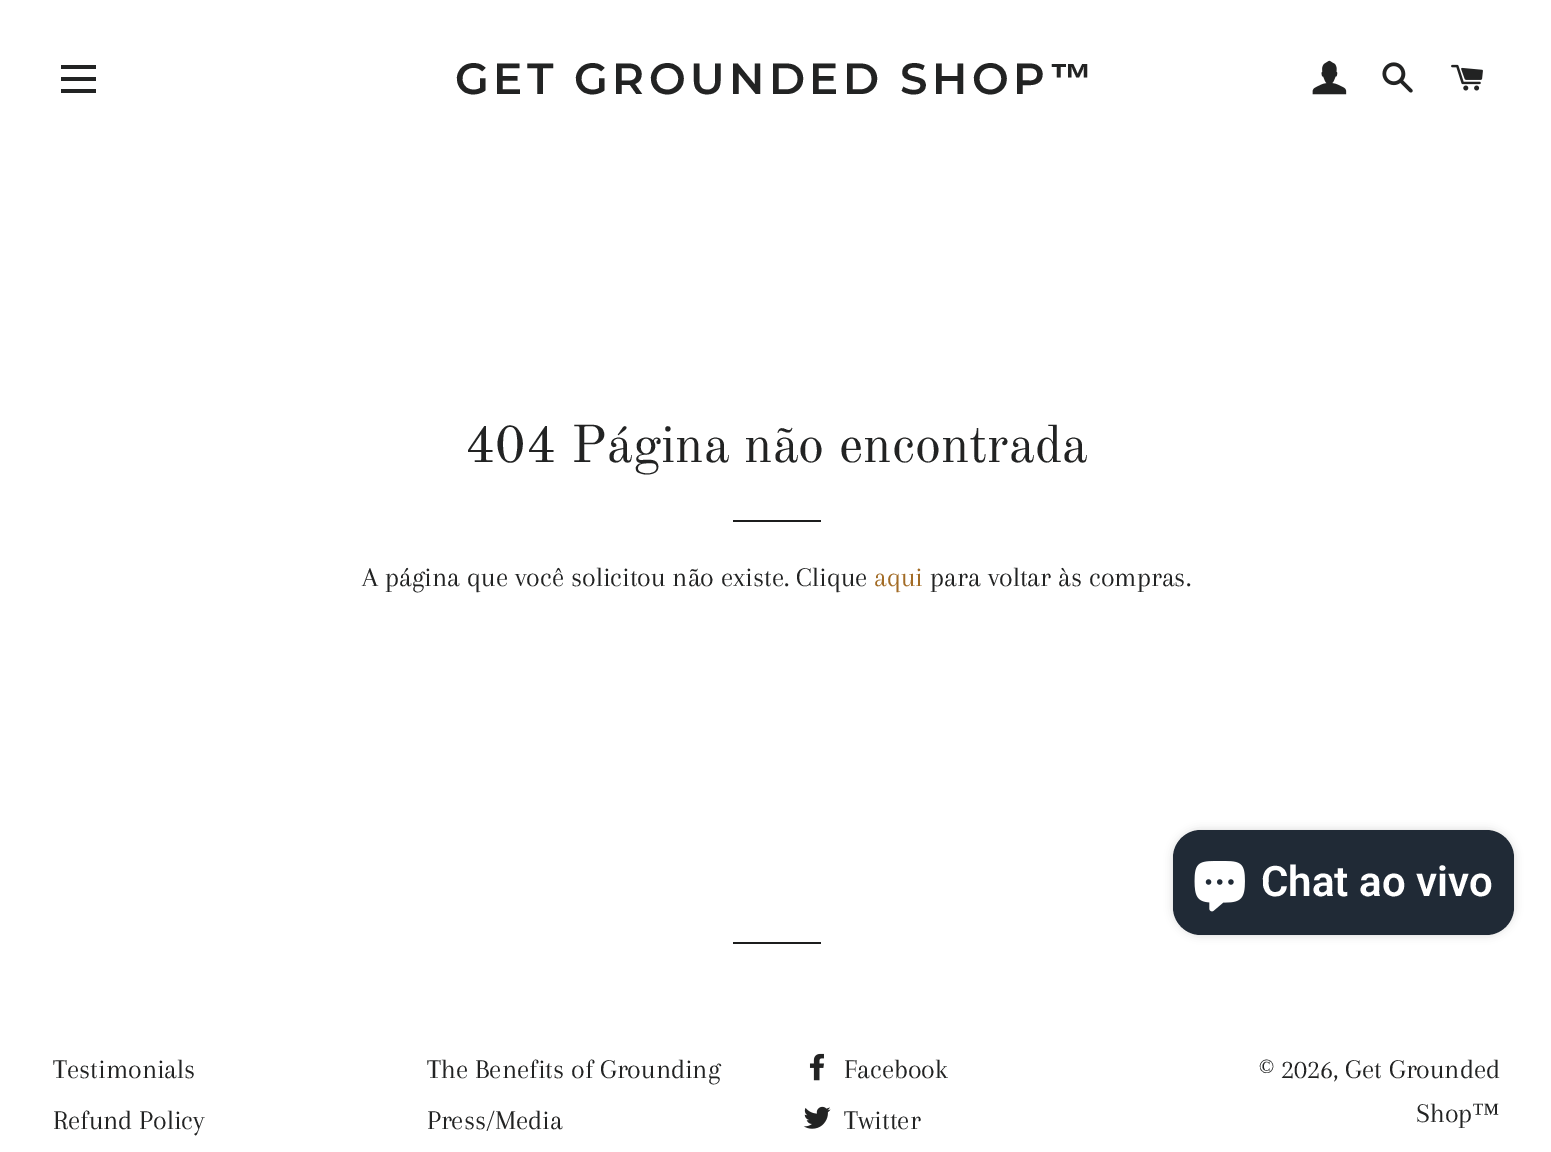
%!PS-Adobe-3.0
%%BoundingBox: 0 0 1551 1152
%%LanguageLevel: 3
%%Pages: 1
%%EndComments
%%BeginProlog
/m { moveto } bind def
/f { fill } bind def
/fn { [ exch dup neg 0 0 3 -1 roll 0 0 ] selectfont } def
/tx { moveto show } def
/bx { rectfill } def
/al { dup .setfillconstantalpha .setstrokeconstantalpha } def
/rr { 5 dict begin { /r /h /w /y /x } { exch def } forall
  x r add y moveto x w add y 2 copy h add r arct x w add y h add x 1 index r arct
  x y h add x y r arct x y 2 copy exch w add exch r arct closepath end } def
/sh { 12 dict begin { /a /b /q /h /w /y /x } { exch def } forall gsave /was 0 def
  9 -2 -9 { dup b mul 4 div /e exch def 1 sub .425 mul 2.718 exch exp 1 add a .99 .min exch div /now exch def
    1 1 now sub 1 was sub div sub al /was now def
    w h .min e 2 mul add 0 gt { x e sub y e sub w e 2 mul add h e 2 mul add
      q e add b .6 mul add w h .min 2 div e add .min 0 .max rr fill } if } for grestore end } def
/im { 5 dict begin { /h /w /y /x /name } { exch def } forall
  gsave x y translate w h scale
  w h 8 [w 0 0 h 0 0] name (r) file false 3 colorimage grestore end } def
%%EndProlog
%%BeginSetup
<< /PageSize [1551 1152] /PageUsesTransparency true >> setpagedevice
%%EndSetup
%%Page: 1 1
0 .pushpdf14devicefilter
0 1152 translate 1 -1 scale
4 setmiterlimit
1 setgray
0 0 1551 1152 bx
0.133 0.137 0.137 setrgbcolor
61 65 35 4 bx
61 77 35 4 bx
61 89 35 4 bx
/Montserrat-SemiBold 43.75 fn
455 94 m 4.4 0 (GET GROUNDED SHOP) ashow
/LiberationSans-Bold 43.75 fn
1049 94 m 4.4 0 (™) ashow
(image0.raw) 1312 60 35 35 im
(image1.raw) 1382 62 31 31 im
(image2.raw) 1451 64 32 27 im
/OldStandardTT-Regular 52.5 fn
(404 Página não encontrada) 465 462 tx
0.11 0.114 0.114 setrgbcolor
733 520 88 2 bx
/Arapey-Regular 28 fn
0.133 0.137 0.137 setrgbcolor
(A página que você solicitou não existe. Clique) 362 586 tx
0.635 0.42 0.145 setrgbcolor
(aqui) 874 586 tx
0.133 0.137 0.137 setrgbcolor
(para voltar às compras.) 930 586 tx
0.11 0.114 0.114 setrgbcolor
733 942 88 2 bx
0.133 0.137 0.137 setrgbcolor
(Testimonials) 53 1078 tx
(Refund Policy) 53 1129 tx
(The Benefits of Grounding) 427 1078 tx
(Press/Media) 427 1129 tx
(image3.raw) 809 1053 15 28 im
(Facebook) 844 1078 tx
(image4.raw) 803 1106 28 23 im
(Twitter) 844 1129 tx
(© 2026, Get Grounded) 1259 1078 tx
(Shop) 1416 1122 tx
/LiberationSerif-Regular 28 fn
(™) 1472 1122 tx
0 setgray
1173 830 341 105 28 4.5 0.15 sh
0.125 0.165 0.212 setrgbcolor
1173 830 341 105 28 rr f
(image5.raw) 1194 861 51 51 im
/Roboto-SemiBold 42 fn
1 setgray
(Chat ao vivo) 1261 896 tx
.poppdf14devicefilter showpage
%%EOF
